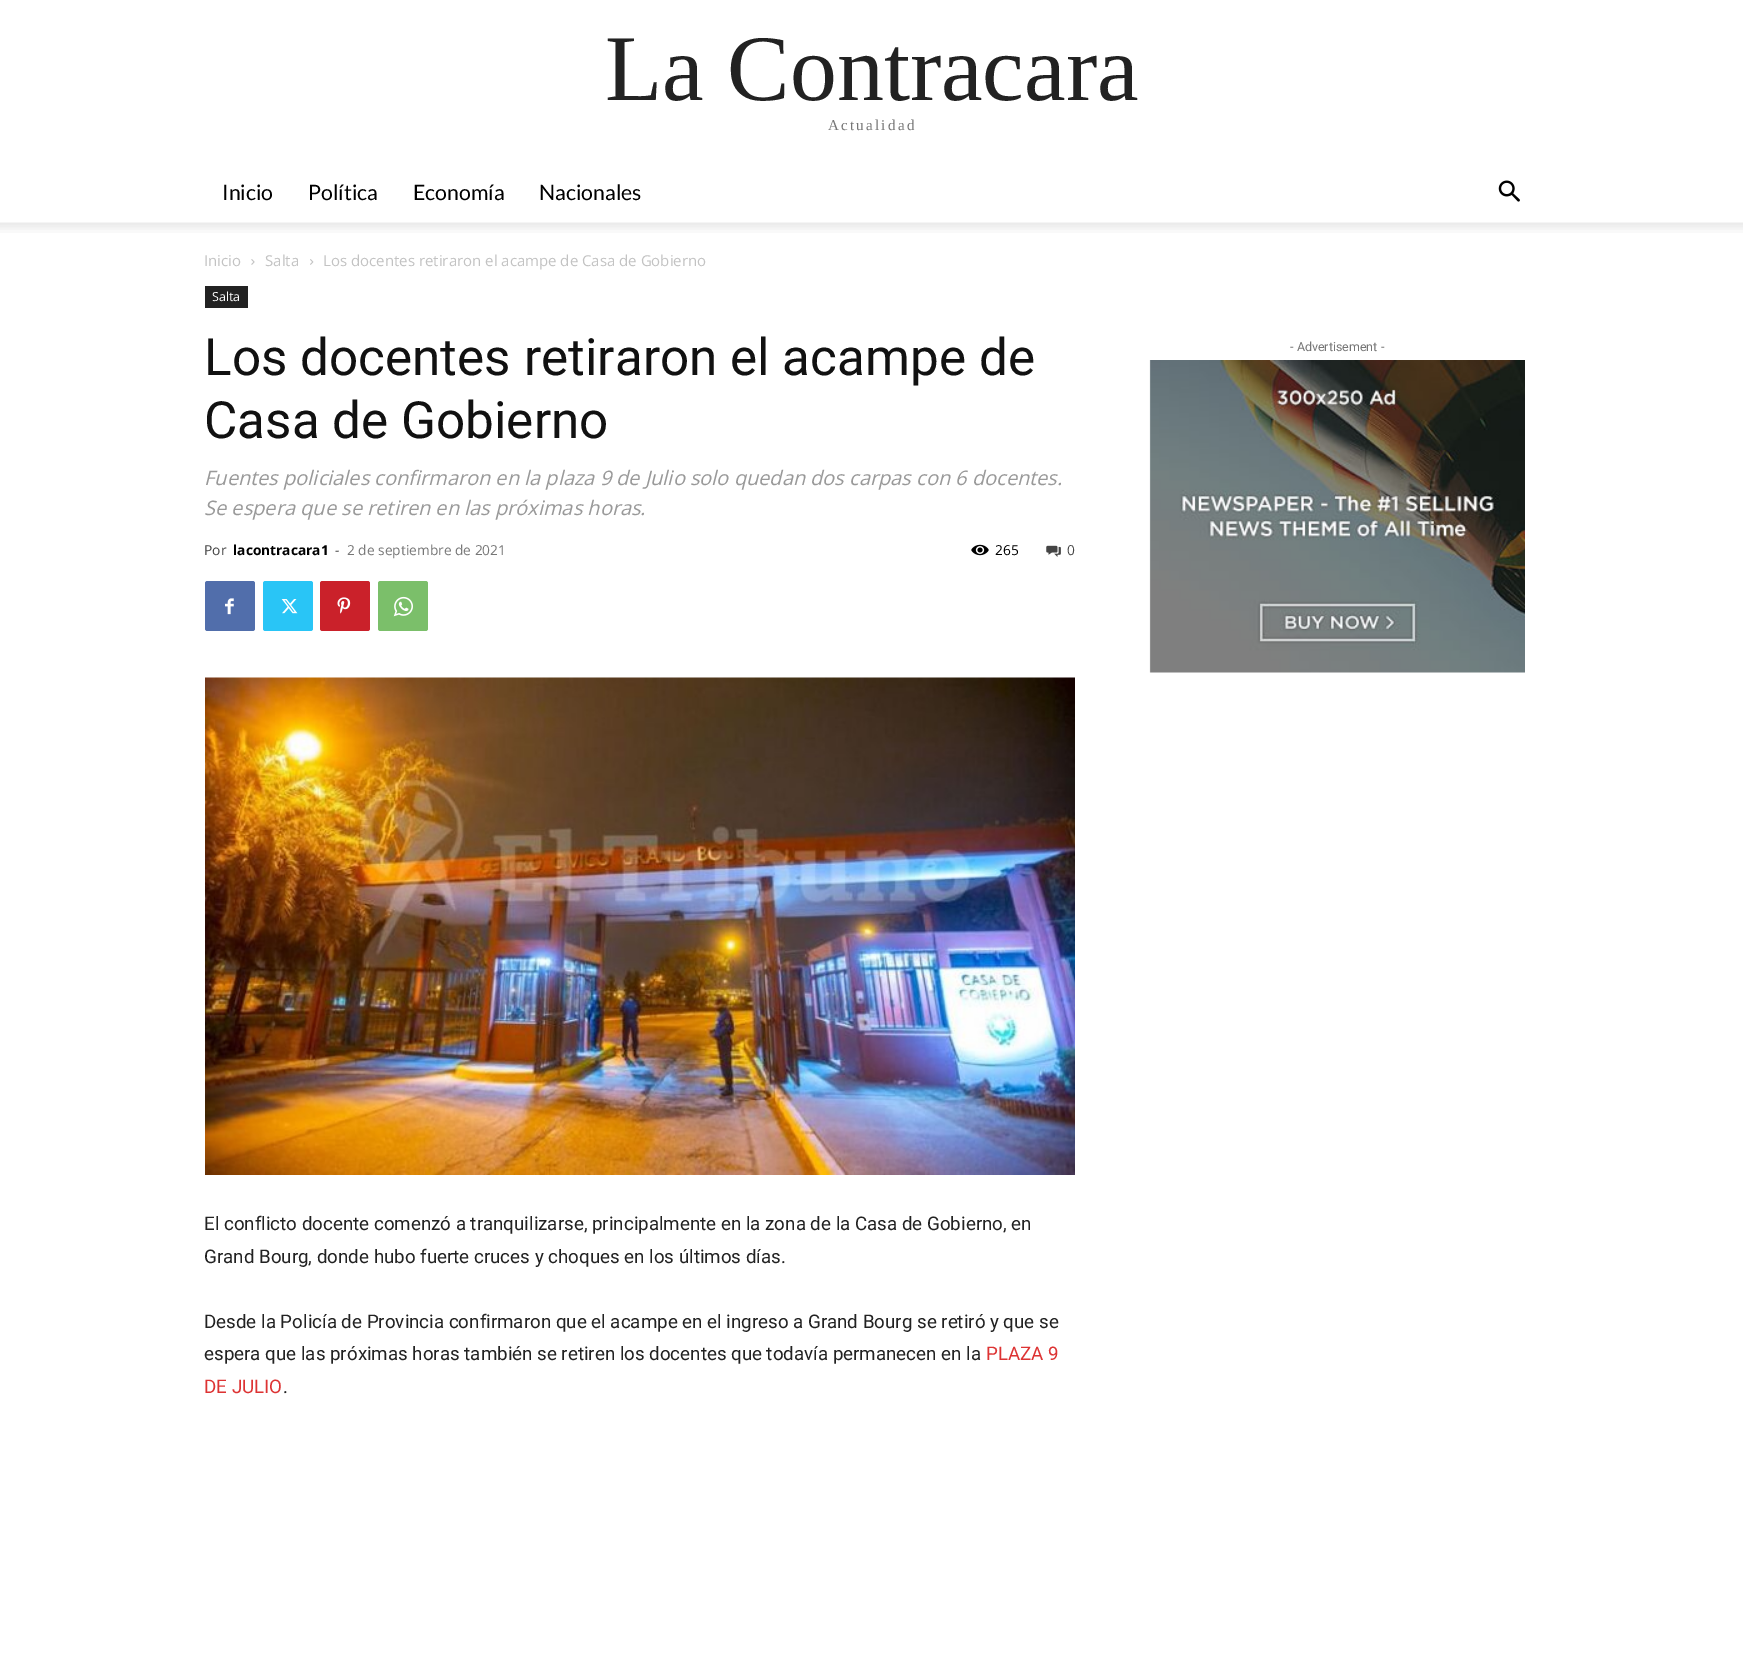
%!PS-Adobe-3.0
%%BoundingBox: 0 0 1743 1678
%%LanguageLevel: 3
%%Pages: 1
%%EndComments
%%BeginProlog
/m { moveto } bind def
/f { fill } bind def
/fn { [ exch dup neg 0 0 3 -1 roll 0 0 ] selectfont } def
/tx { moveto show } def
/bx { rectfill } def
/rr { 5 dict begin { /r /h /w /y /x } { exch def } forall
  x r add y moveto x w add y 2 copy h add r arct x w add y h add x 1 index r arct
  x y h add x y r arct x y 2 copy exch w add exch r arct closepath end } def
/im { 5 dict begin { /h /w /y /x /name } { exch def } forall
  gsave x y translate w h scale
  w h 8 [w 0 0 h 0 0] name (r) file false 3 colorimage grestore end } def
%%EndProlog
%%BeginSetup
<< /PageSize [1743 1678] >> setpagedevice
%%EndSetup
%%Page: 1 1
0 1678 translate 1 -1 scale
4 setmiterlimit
1 setgray
0 0 1743 1678 bx
/LiberationSerif-Regular 93.75 fn
0.133 setgray
(La Contracara) 605 100 tx
/LiberationSerif-Regular 15 fn
0.463 setgray
828 130 m 2.25 0 (Actualidad) ashow
/Lato-Regular 21.25 fn
0 setgray
(Inicio) 222 200 tx
(Política) 308 200 tx
(Economía) 413 200 tx
(Nacionales) 539 200 tx
(image0.raw) 1498 180 22 22 im
(image1.raw) 0 222 1743 11 im
/OpenSans-Regular 15 fn
0.765 setgray
(Inicio) 204 266 tx
(image2.raw) 251 259 4 6 im
(Salta) 265 266 tx
(image3.raw) 310 259 4 6 im
(Los docentes retiraron el acampe de Casa de Gobierno) 323 266 tx
0.133 setgray
205 286 43 22 bx
/OpenSans-Regular 12.5 fn
1 setgray
(Salta) 212 301 tx
/Roboto-Regular 51.25 fn
0.067 setgray
(Los docentes retiraron el acampe de) 204 375 tx
(Casa de Gobierno) 204 438 tx
/OpenSans-Italic 20 fn
0.6 setgray
(Fuentes policiales confirmaron en la plaza 9 de Julio solo quedan dos carpas con 6 docentes.) 204 485 tx
(Se espera que se retiren en las próximas horas.) 204 515 tx
/OpenSans-Regular 13.75 fn
0.267 setgray
(Por) 204 555 tx
/OpenSans-Bold 13.75 fn
0 setgray
(lacontracara1) 233 555 tx
/OpenSans-Regular 13.75 fn
0.267 setgray
(-) 335 555 tx
0.463 setgray
(2 de septiembre de 2021) 347 555 tx
(image4.raw) 971 544 18 12 im
0 setgray
(265) 995 555 tx
(image5.raw) 1046 545 15 12 im
0.267 setgray
(0) 1067 555 tx
0.318 0.431 0.671 setrgbcolor
205 581 50 50 2.5 rr f
(image6.raw) 225 598 9 17 im
0.161 0.773 0.965 setrgbcolor
263 581 50 50 2.5 rr f
(image7.raw) 281 599 17 15 im
0.792 0.129 0.165 setrgbcolor
320 581 50 50 2.5 rr f
(image8.raw) 337 597 14 17 im
0.482 0.749 0.416 setrgbcolor
378 581 50 50 2.5 rr f
(image9.raw) 393 596 20 21 im
(image10.raw) 205 677 870 498 im
/Roboto-Regular 18.75 fn
0.133 setgray
(El conflicto docente comenzó a tranquilizarse, principalmente en la zona de la Casa de Gobierno, en) 204 1230 tx
(Grand Bourg, donde hubo fuerte cruces y choques en los últimos días.) 204 1263 tx
(Desde la Policía de Provincia confirmaron que el acampe en el ingreso a Grand Bourg se retiró y que se) 204 1328 tx
(espera que las próximas horas también se retiren los docentes que todavía permanecen en la) 204 1360 tx
0.867 0.2 0.2 setrgbcolor
(PLAZA 9) 986 1360 tx
(DE JULIO) 204 1393 tx
0.133 setgray
(.) 283 1393 tx
/Roboto-Regular 12.5 fn
0.463 setgray
(- Advertisement -) 1290 351 tx
(image11.raw) 1149 360 376 313 im
showpage
%%EOF
